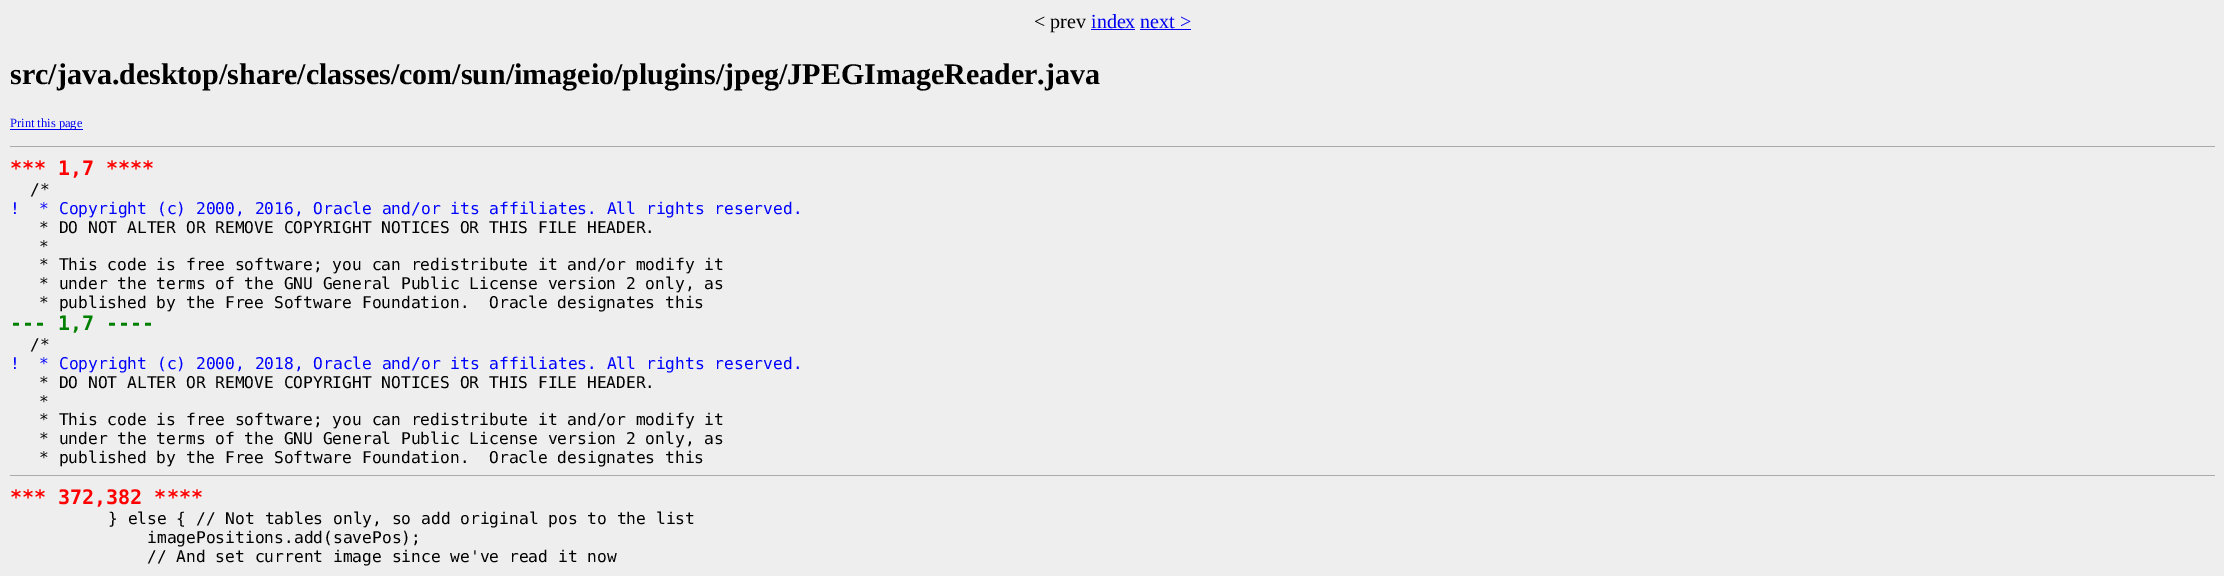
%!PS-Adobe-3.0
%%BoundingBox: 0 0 2224 576
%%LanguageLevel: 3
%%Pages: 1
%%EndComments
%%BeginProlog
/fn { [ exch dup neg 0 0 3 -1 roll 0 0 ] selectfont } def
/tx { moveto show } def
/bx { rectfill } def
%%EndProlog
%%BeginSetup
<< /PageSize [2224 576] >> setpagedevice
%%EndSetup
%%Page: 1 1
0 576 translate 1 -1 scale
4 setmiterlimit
0.933 setgray
0 0 2224 576 bx
/LiberationSerif-Regular 20 fn
0 setgray
(< prev) 1034 28 tx
0 0 0.933 setrgbcolor
(index next >) 1091 28 tx
1091 29 44 1 bx
1140 29 51 1 bx
/LiberationSerif-Bold 30 fn
0 setgray
(src/java.desktop/share/classes/com/sun/imageio/plugins/jpeg/JPEGImageReader.java) 10 84 tx
0 0 0.933 setrgbcolor
10 129 73 1 bx
/LiberationSerif-Regular 12.5 fn
(Print this page) 10 127 tx
0.667 setgray
10 146 2205 1 bx
/DejaVuSansMono-Bold 20 fn
1 0 0 setrgbcolor
(*** 1,7 ****) 10 175 tx
/DejaVuSansMono-Regular 16.25 fn
0 setgray
(/*) 30 195 tx
0 0 1 setrgbcolor
(!  * Copyright \(c\) 2000, 2016, Oracle and/or its affiliates. All rights reserved.) 10 214 tx
0 setgray
(* DO NOT ALTER OR REMOVE COPYRIGHT NOTICES OR THIS FILE HEADER.) 39 233 tx
(*) 39 252 tx
(* This code is free software; you can redistribute it and/or modify it) 39 270 tx
(* under the terms of the GNU General Public License version 2 only, as) 39 289 tx
(* published by the Free Software Foundation.  Oracle designates this) 39 308 tx
/DejaVuSansMono-Bold 20 fn
0 0.502 0 setrgbcolor
(--- 1,7 ----) 10 330 tx
/DejaVuSansMono-Regular 16.25 fn
0 setgray
(/*) 30 350 tx
0 0 1 setrgbcolor
(!  * Copyright \(c\) 2000, 2018, Oracle and/or its affiliates. All rights reserved.) 10 369 tx
0 setgray
(* DO NOT ALTER OR REMOVE COPYRIGHT NOTICES OR THIS FILE HEADER.) 39 388 tx
(*) 39 407 tx
(* This code is free software; you can redistribute it and/or modify it) 39 425 tx
(* under the terms of the GNU General Public License version 2 only, as) 39 444 tx
(* published by the Free Software Foundation.  Oracle designates this) 39 463 tx
0.667 setgray
10 475 2205 1 bx
/DejaVuSansMono-Bold 20 fn
1 0 0 setrgbcolor
(*** 372,382 ****) 10 504 tx
/DejaVuSansMono-Regular 16.25 fn
0 setgray
(} else { // Not tables only, so add original pos to the list) 108 524 tx
(imagePositions.add\(savePos\);) 147 543 tx
(// And set current image since we've read it now) 147 562 tx
showpage
%%EOF
